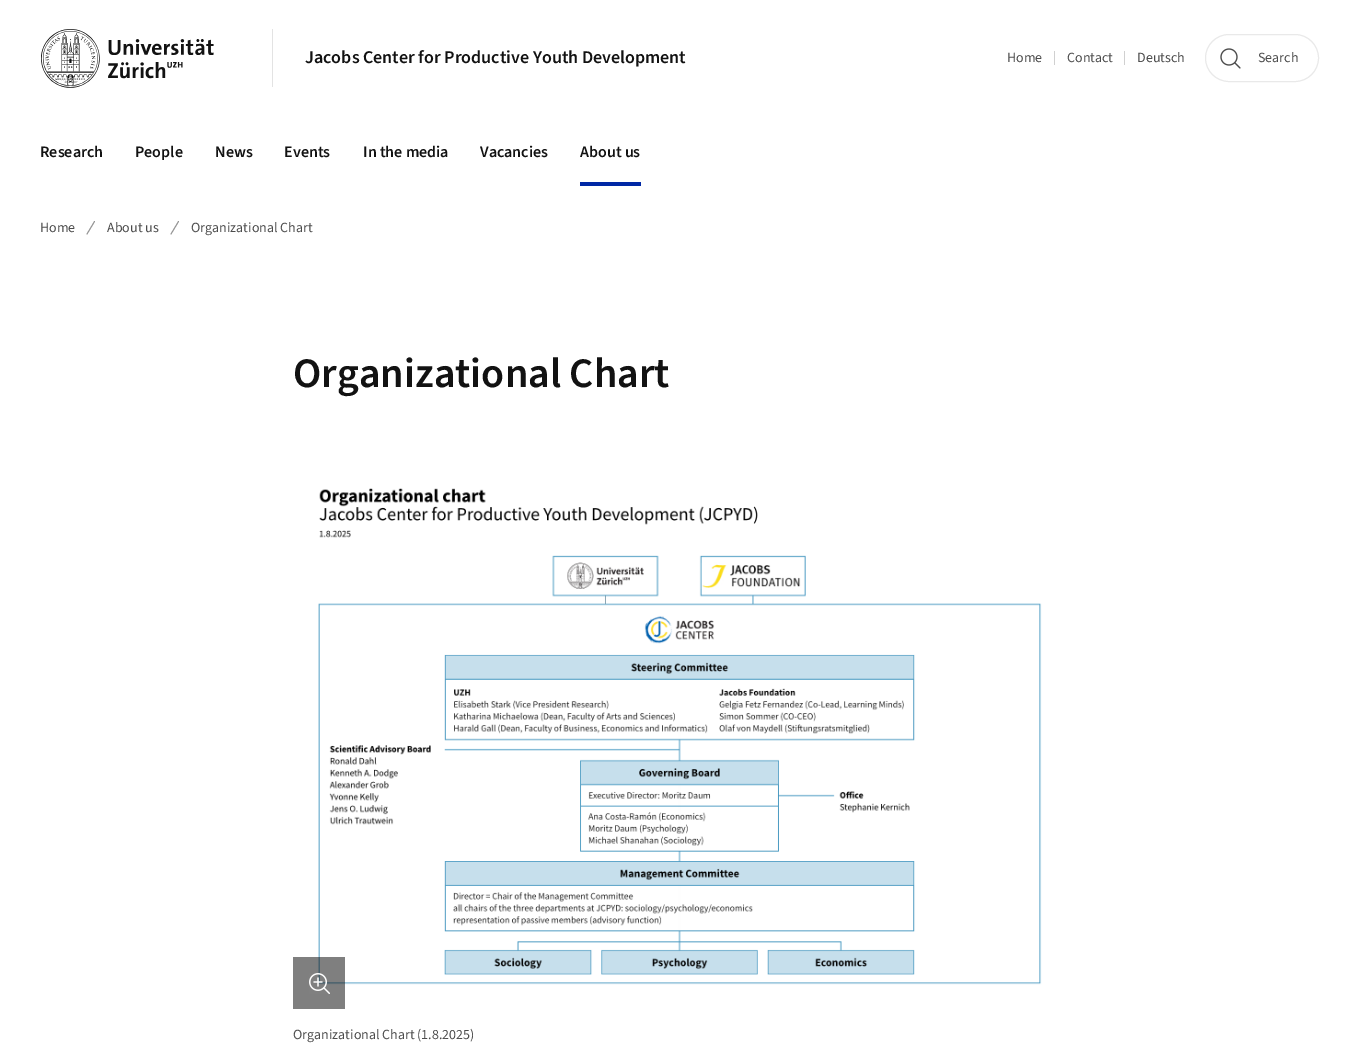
%!PS-Adobe-3.0
%%BoundingBox: 0 0 1359 1055
%%LanguageLevel: 3
%%Pages: 1
%%EndComments
%%BeginProlog
/m { moveto } bind def
/l { lineto } bind def
/S { stroke } bind def
/w { setlinewidth } bind def
/fn { [ exch dup neg 0 0 3 -1 roll 0 0 ] selectfont } def
/tx { moveto show } def
/bx { rectfill } def
/al { dup .setfillconstantalpha .setstrokeconstantalpha } def
/rr { 5 dict begin { /r /h /w /y /x } { exch def } forall
  x r add y moveto x w add y 2 copy h add r arct x w add y h add x 1 index r arct
  x y h add x y r arct x y 2 copy exch w add exch r arct closepath end } def
/im { 5 dict begin { /h /w /y /x /name } { exch def } forall
  gsave x y translate w h scale
  w h 8 [w 0 0 h 0 0] name (r) file false 3 colorimage grestore end } def
%%EndProlog
%%BeginSetup
<< /PageSize [1359 1055] /PageUsesTransparency true >> setpagedevice
%%EndSetup
%%Page: 1 1
0 .pushpdf14devicefilter
0 1055 translate 1 -1 scale
4 setmiterlimit
1 setgray
0 0 1359 1055 bx
(image0.raw) 41 29 173 59 im
0.89 setgray
272 29 1 58 bx
/SourceSans3-SemiBold 18 fn
0.071 setgray
(Jacobs Center for Productive Youth Development) 305 63 tx
/SourceSans3-Regular 14 fn
0.298 setgray
(Home) 1007 62 tx
0.816 setgray
1054 51 1 14 bx
0.298 setgray
(Contact) 1067 62 tx
0.816 setgray
1124 51 1 14 bx
0.298 setgray
(Deutsch) 1137 62 tx
0.914 setgray
1205.5 34.5 113 47 23.5 rr S
(image1.raw) 1220 48 21 21 im
0.298 setgray
(Search) 1258 62 tx
/SourceSans3-SemiBold 16 fn
0.071 setgray
(Research) 40 157 tx
(People) 135 157 tx
(News) 215 157 tx
(Events) 284 157 tx
(In the media) 363 157 tx
(Vacancies) 480 157 tx
(About us) 580 157 tx
0 0.157 0.647 setrgbcolor
580 182 61 4 bx
/SourceSans3-Regular 14 fn
0.298 setgray
(Home) 40 232 tx
0.58 setgray
0.9 w
1 setlinecap
87 234 m 94.5 221.5 l S
0.298 setgray
(About us) 107 232 tx
0.58 setgray
171 234 m 178.5 221.5 l S
0.298 setgray
(Organizational Chart) 191 232 tx
/SourceSans3-SemiBold 42 fn
0.071 setgray
(Organizational Chart) 293 387 tx
(image2.raw) 318 488 724 497 im
0.5 al
0 setgray
293 957 52 52 bx
1 al
(image3.raw) 309 973 21 21 im
/SourceSans3-Regular 14 fn
0.298 setgray
(Organizational Chart \(1.8.2025\)) 293 1039 tx
.poppdf14devicefilter showpage
%%EOF
